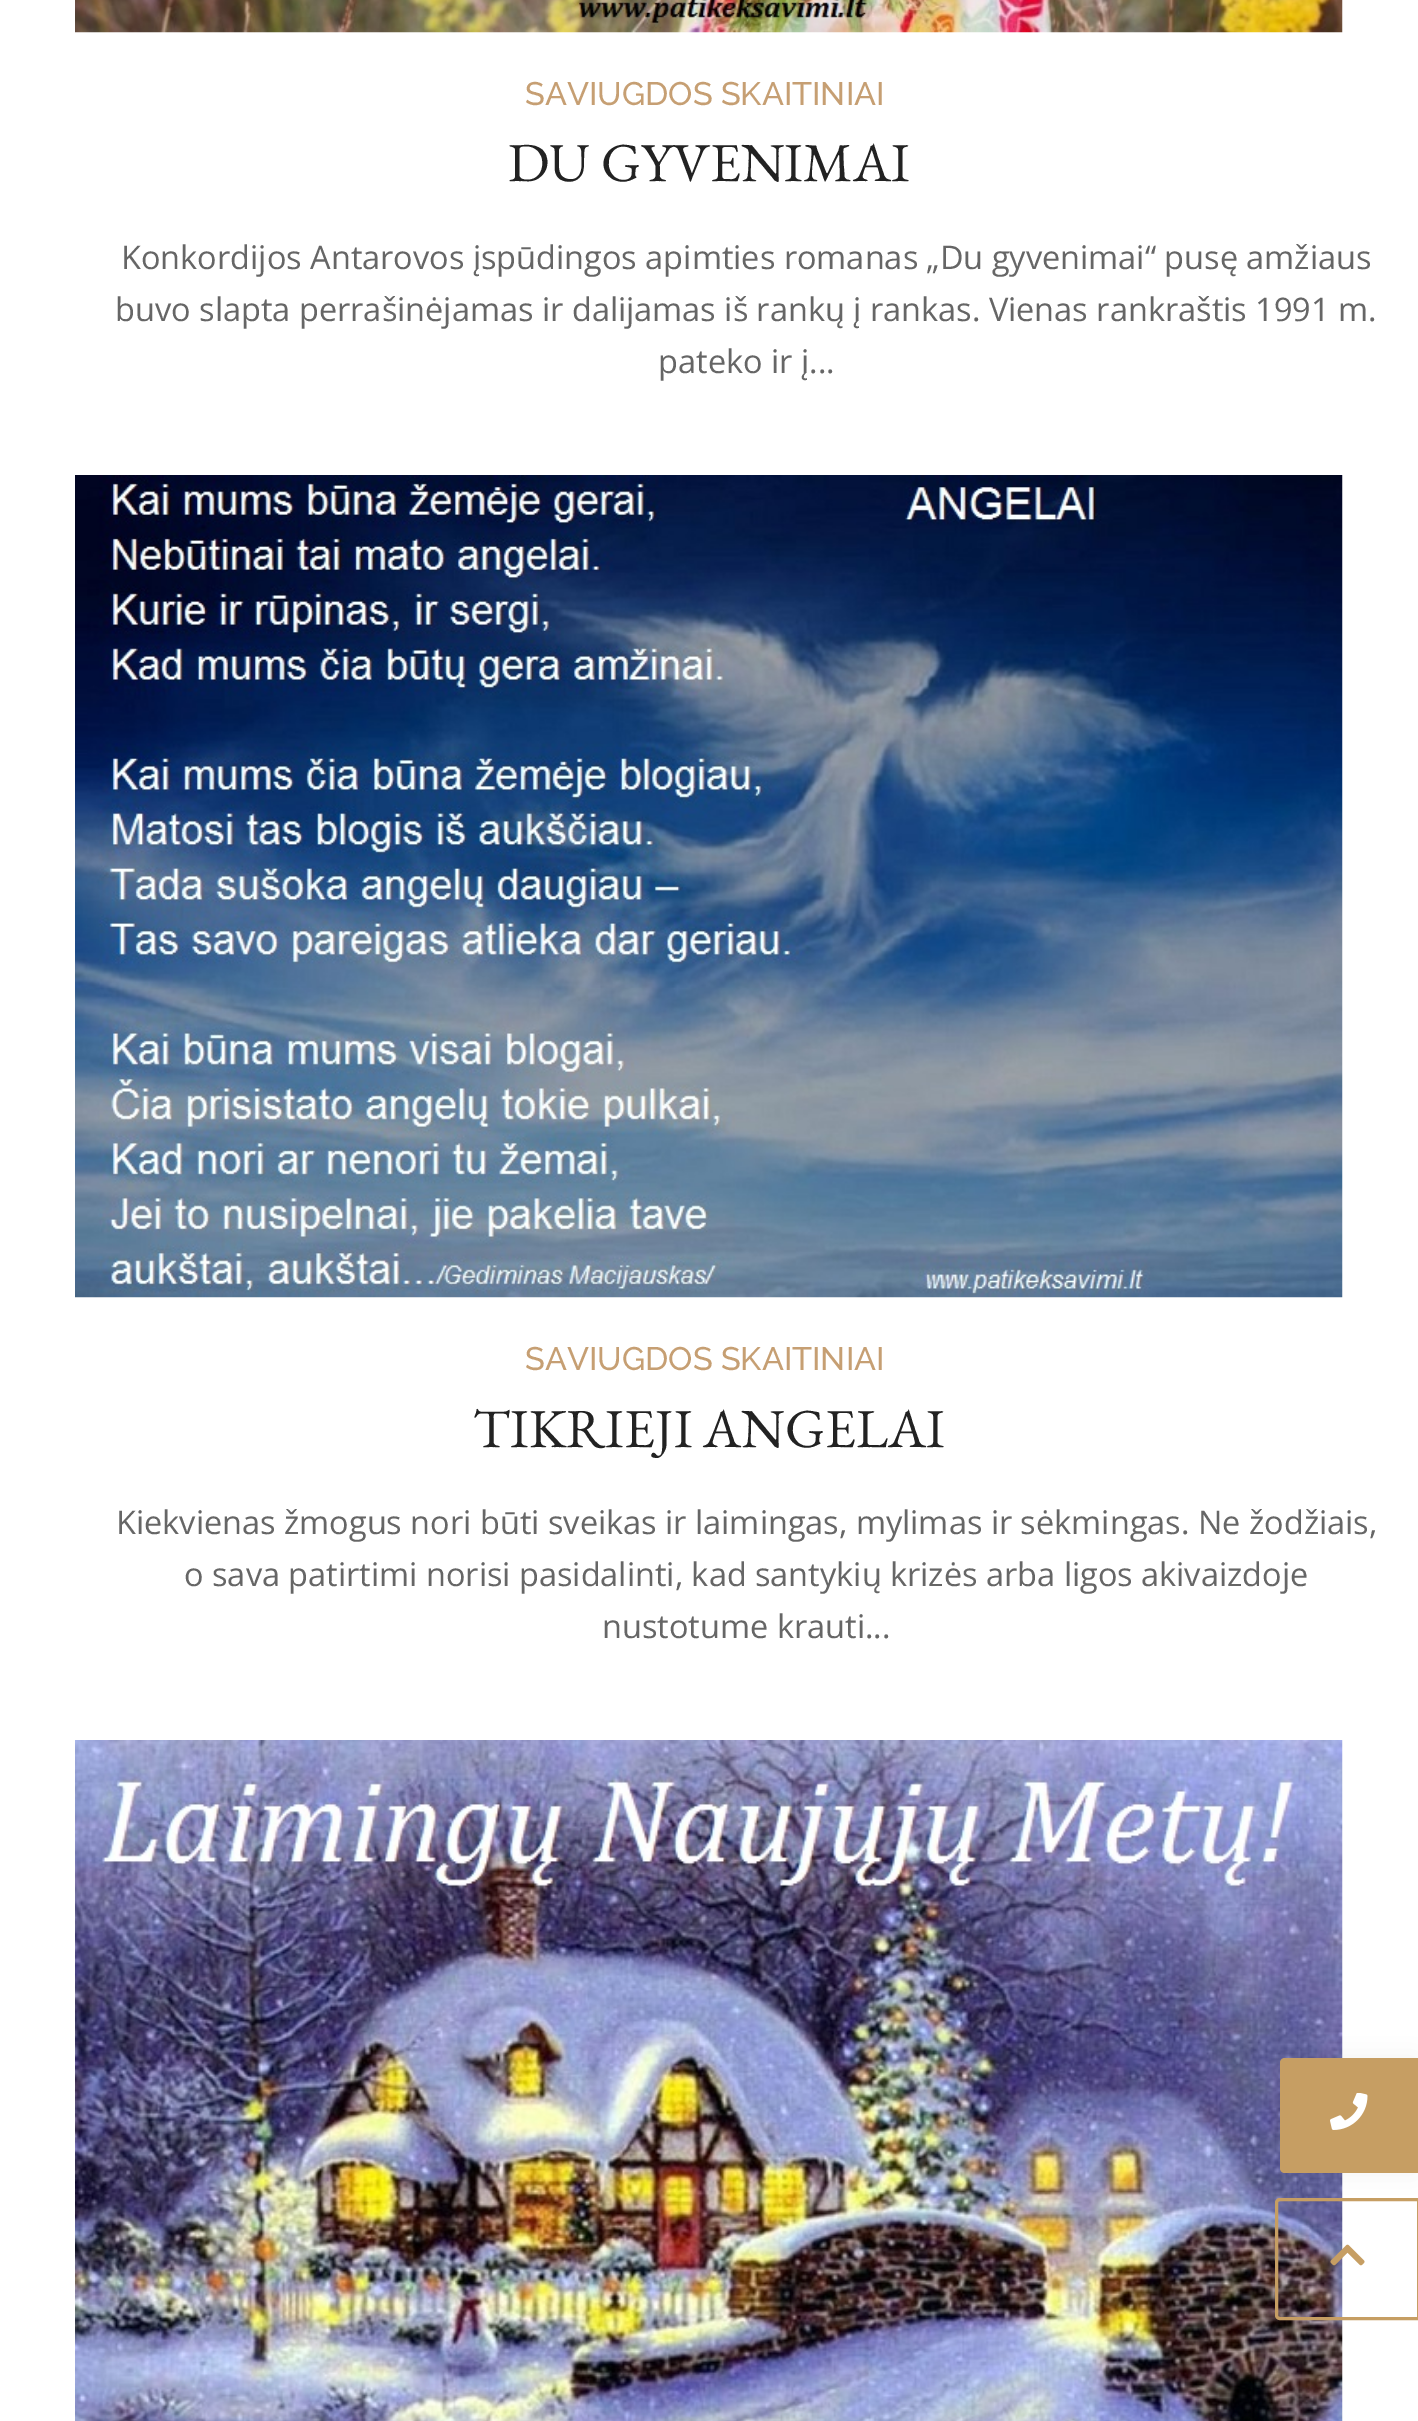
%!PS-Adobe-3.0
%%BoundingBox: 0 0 1418 2421
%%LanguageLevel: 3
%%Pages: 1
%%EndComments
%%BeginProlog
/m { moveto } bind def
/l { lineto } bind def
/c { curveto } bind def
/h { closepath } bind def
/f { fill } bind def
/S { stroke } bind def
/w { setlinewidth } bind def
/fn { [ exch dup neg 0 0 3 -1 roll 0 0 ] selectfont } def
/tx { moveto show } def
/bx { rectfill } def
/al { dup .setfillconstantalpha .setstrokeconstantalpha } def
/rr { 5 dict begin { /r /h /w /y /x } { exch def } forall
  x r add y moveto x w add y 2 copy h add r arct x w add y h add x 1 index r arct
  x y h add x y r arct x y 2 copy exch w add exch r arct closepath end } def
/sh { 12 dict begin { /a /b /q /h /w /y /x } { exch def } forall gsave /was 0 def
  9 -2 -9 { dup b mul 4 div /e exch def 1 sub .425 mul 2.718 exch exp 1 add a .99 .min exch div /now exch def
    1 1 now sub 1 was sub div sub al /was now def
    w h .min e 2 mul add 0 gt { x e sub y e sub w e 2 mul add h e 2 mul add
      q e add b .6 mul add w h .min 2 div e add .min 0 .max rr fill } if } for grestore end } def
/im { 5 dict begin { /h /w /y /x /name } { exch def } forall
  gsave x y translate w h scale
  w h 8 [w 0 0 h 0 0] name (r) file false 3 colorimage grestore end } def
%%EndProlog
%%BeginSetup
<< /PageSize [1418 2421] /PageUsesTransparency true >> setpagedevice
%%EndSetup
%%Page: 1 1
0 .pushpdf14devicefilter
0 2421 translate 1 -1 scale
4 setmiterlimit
1 setgray
0 0 1418 2421 bx
(image0.raw) 75 0 1268 33 im
/Raleway-Medium 32.5 fn
0.776 0.624 0.451 setrgbcolor
(SAVIUGDOS SKAITINIAI) 525 105 tx
/EBGaramond-Regular 55 fn
0.133 setgray
(DU GYVENIMAI) 508 181 tx
/OpenSans-Regular 32.5 fn
0.4 setgray
(Konkordijos Antarovos įspūdingos apimties romanas „Du gyvenimai“ pusę amžiaus) 121 269 tx
(buvo slapta perrašinėjamas ir dalijamas iš rankų į rankas. Vienas rankraštis 1991 m.) 115 321 tx
(pateko ir į...) 658 373 tx
(image1.raw) 75 475 1268 823 im
/Raleway-Medium 32.5 fn
0.776 0.624 0.451 setrgbcolor
(SAVIUGDOS SKAITINIAI) 525 1370 tx
/EBGaramond-Regular 55 fn
0.133 setgray
(TIKRIEJI ANGELAI) 473 1447 tx
/OpenSans-Regular 32.5 fn
0.4 setgray
(Kiekvienas žmogus nori būti sveikas ir laimingas, mylimas ir sėkmingas. Ne žodžiais,) 116 1534 tx
(o sava patirtimi norisi pasidalinti, kad santykių krizės arba ligos akivaizdoje) 184 1586 tx
(nustotume krauti...) 602 1638 tx
(image2.raw) 75 1740 1268 681 im
0.776 0.62 0.388 setrgbcolor
3 w
1280 2199.5 m 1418.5 2199.5 l 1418.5 2318.5 l 1280 2318.5 l 1278 2318.5 1276.5 2317 1276.5 2315 c 1276.5 2203 l 1276.5 2201 1278 2199.5 1280 2199.5 c h S
0.235 setgray
1280 2058 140 115 5 12.5 0.06 sh
0.776 0.62 0.388 setrgbcolor
1285 2058 m 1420 2058 l 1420 2173 l 1285 2173 l 1282 2173 1280 2171 1280 2168 c 1280 2063 l 1280 2060 1282 2058 1285 2058 c h f
(image3.raw) 1330 2093 38 37 im
(image4.raw) 1330 2244 35 22 im
.poppdf14devicefilter showpage
%%EOF
